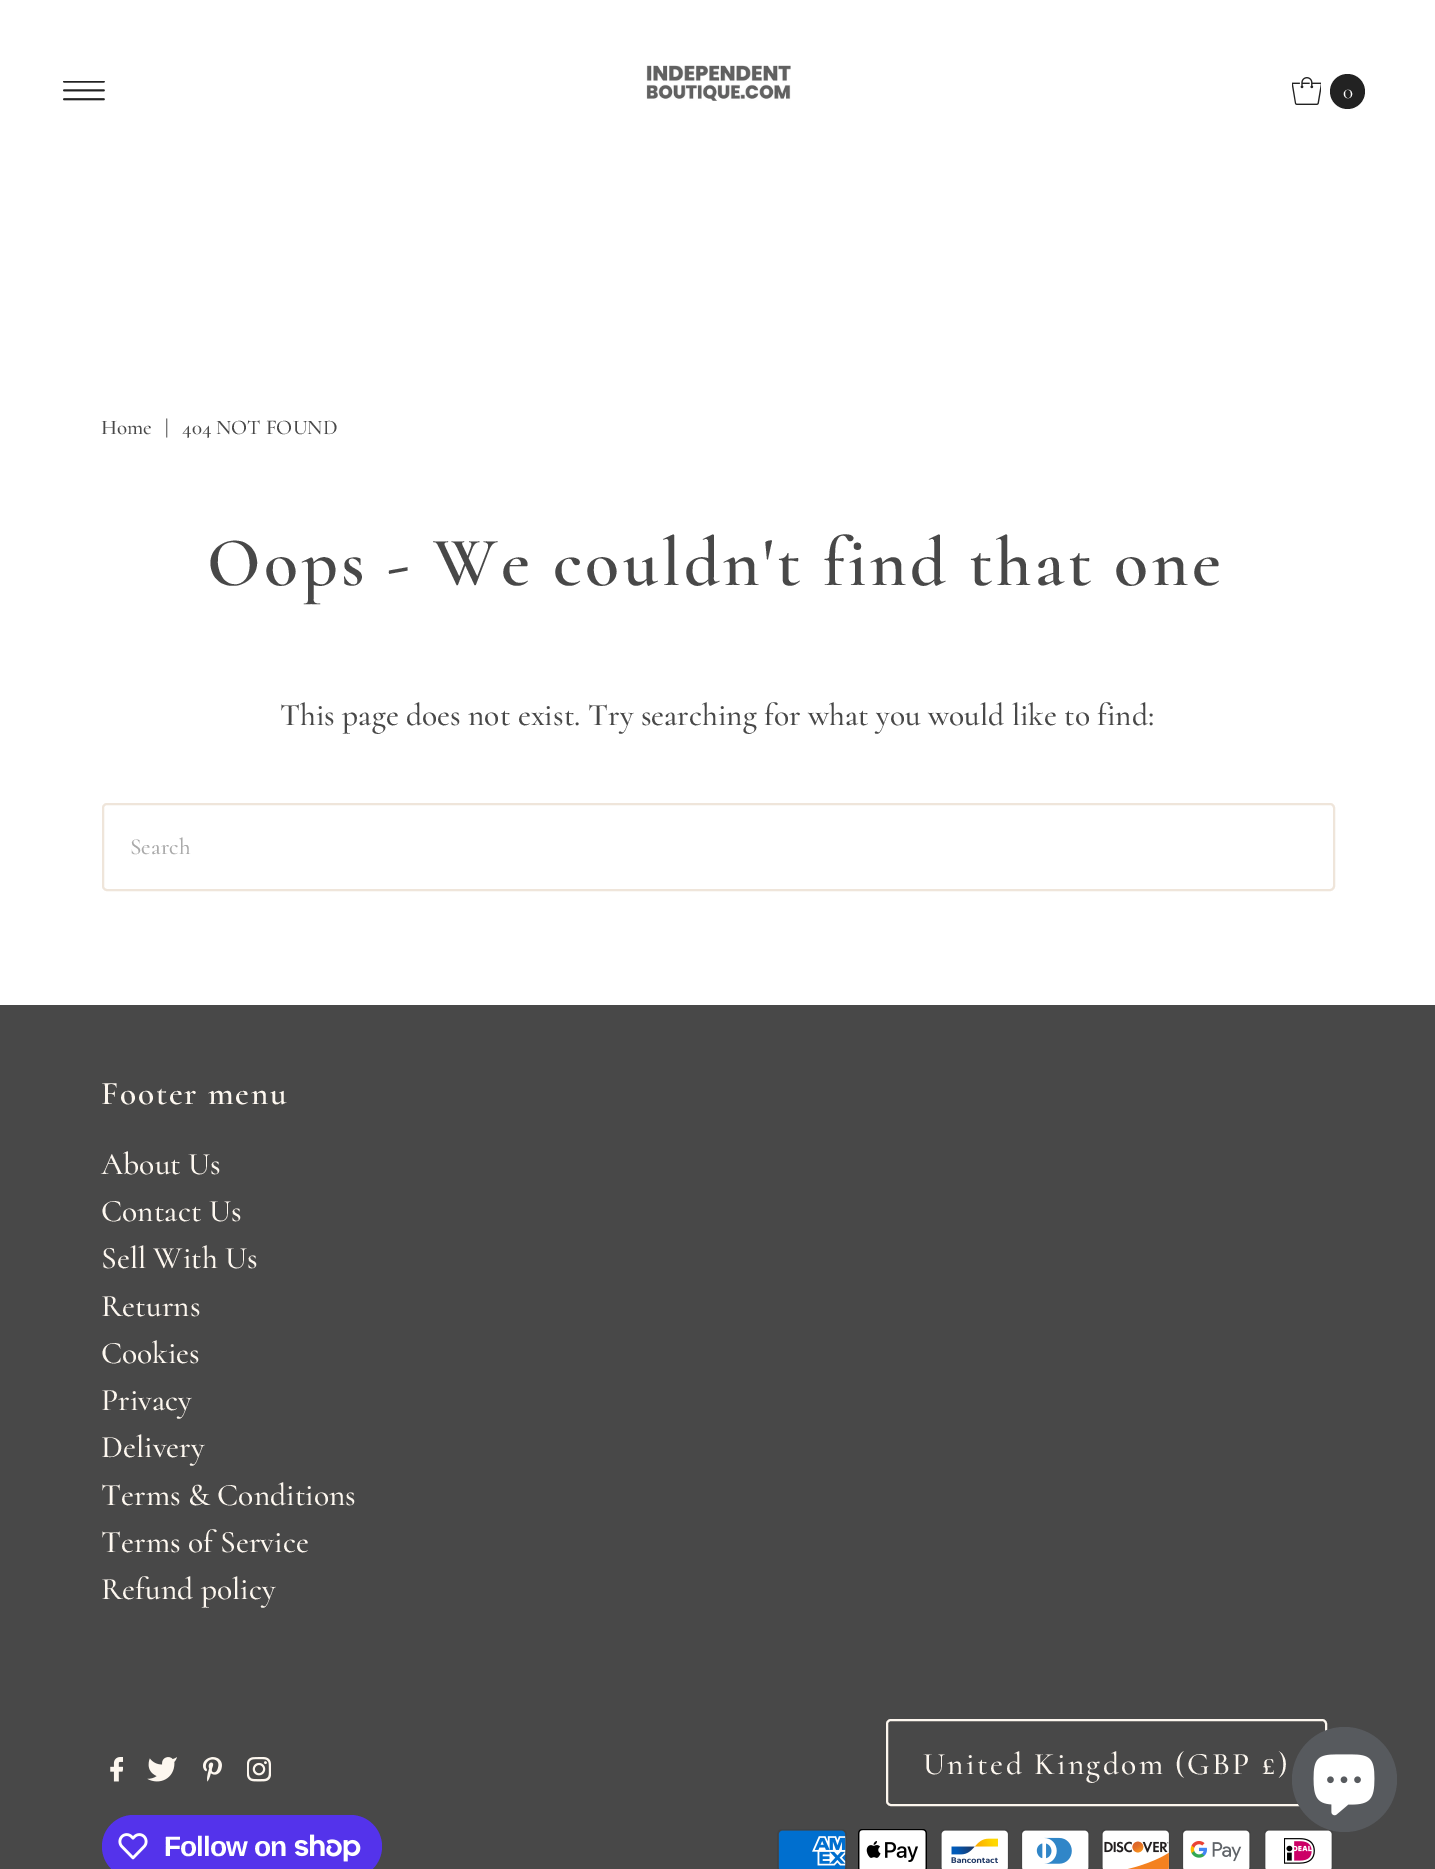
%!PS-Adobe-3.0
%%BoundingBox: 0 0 1435 1869
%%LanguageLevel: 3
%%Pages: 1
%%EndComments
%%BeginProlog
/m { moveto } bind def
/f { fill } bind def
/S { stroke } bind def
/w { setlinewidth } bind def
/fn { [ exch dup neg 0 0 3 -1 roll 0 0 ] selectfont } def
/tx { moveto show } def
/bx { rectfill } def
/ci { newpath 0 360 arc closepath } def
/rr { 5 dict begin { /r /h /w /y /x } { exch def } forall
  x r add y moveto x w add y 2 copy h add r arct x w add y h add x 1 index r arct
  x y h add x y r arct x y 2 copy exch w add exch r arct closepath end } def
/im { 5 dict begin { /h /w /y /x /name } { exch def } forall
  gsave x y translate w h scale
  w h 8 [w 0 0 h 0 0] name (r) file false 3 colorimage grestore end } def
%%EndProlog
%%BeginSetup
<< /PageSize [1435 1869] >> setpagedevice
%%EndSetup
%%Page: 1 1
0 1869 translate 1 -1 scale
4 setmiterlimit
1 setgray
0 0 1435 1869 bx
(image0.raw) 63 81 42 20 im
(image1.raw) 646 65 145 36 im
(image2.raw) 1292 77 29 28 im
0.133 setgray
1347.5 91.5 17.5 ci f
/Cormorant-Regular 21 fn
1 setgray
(0) 1343 98 tx
/Cormorant-Medium 21 fn
0.282 setgray
(Home) 101 434 tx
(|) 165 434 tx
(404 NOT FOUND) 182 434 tx
/Cormorant-SemiBold 70 fn
207 585 m -0.5 0 32 3.5 0 (Oops - We couldn't find that one) awidthshow
/Cormorant-Medium 31.5 fn
(This page does not exist. Try searching for what you would like to find:) 280 725 tx
0.937 0.898 0.855 setrgbcolor
2 w
103 804 1231 86 4 rr S
/Cormorant-Medium 23 fn
0.667 setgray
(Search) 130 854 tx
0.282 setgray
0 1005 1435 864 bx
/Cormorant-SemiBold 33.25 fn
0.992 0.969 0.937 setrgbcolor
101 1104 m 1.75 0 (Footer menu) ashow
/Cormorant-Medium 31.5 fn
(About Us) 101 1174 tx
(Contact Us) 101 1221 tx
(Sell With Us) 101 1268 tx
(Returns) 101 1316 tx
(Cookies) 101 1363 tx
(Privacy) 101 1410 tx
(Delivery) 101 1457 tx
(Terms & Conditions) 101 1505 tx
(Terms of Service) 101 1552 tx
(Refund policy) 101 1599 tx
887 1720 439 85 4 rr S
923 1774 m 2.4 0 (United Kingdom \(GBP £\)) ashow
(image3.raw) 777 1829 70 40 im
(image4.raw) 858 1829 69 40 im
(image5.raw) 940 1829 69 40 im
(image6.raw) 1021 1829 69 40 im
(image7.raw) 1101 1829 69 40 im
(image8.raw) 1182 1829 69 40 im
(image9.raw) 1264 1829 69 40 im
(image10.raw) 110 1757 13 25 im
(image11.raw) 147 1757 30 25 im
(image12.raw) 203 1757 19 25 im
(image13.raw) 247 1757 24 25 im
0.329 0.2 0.922 setrgbcolor
102 1815 280 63 31.5 rr f
(image14.raw) 118 1833 30 27 im
/LiberationSans-Bold 28 fn
1 setgray
164 1856 m -0.9 0 (Follow on) ashow
(image15.raw) 294 1834 67 28 im
0.341 0.353 0.369 setrgbcolor
1344.5 1779.5 52.5 ci f
(image16.raw) 1313 1754 62 62 im
showpage
%%EOF
